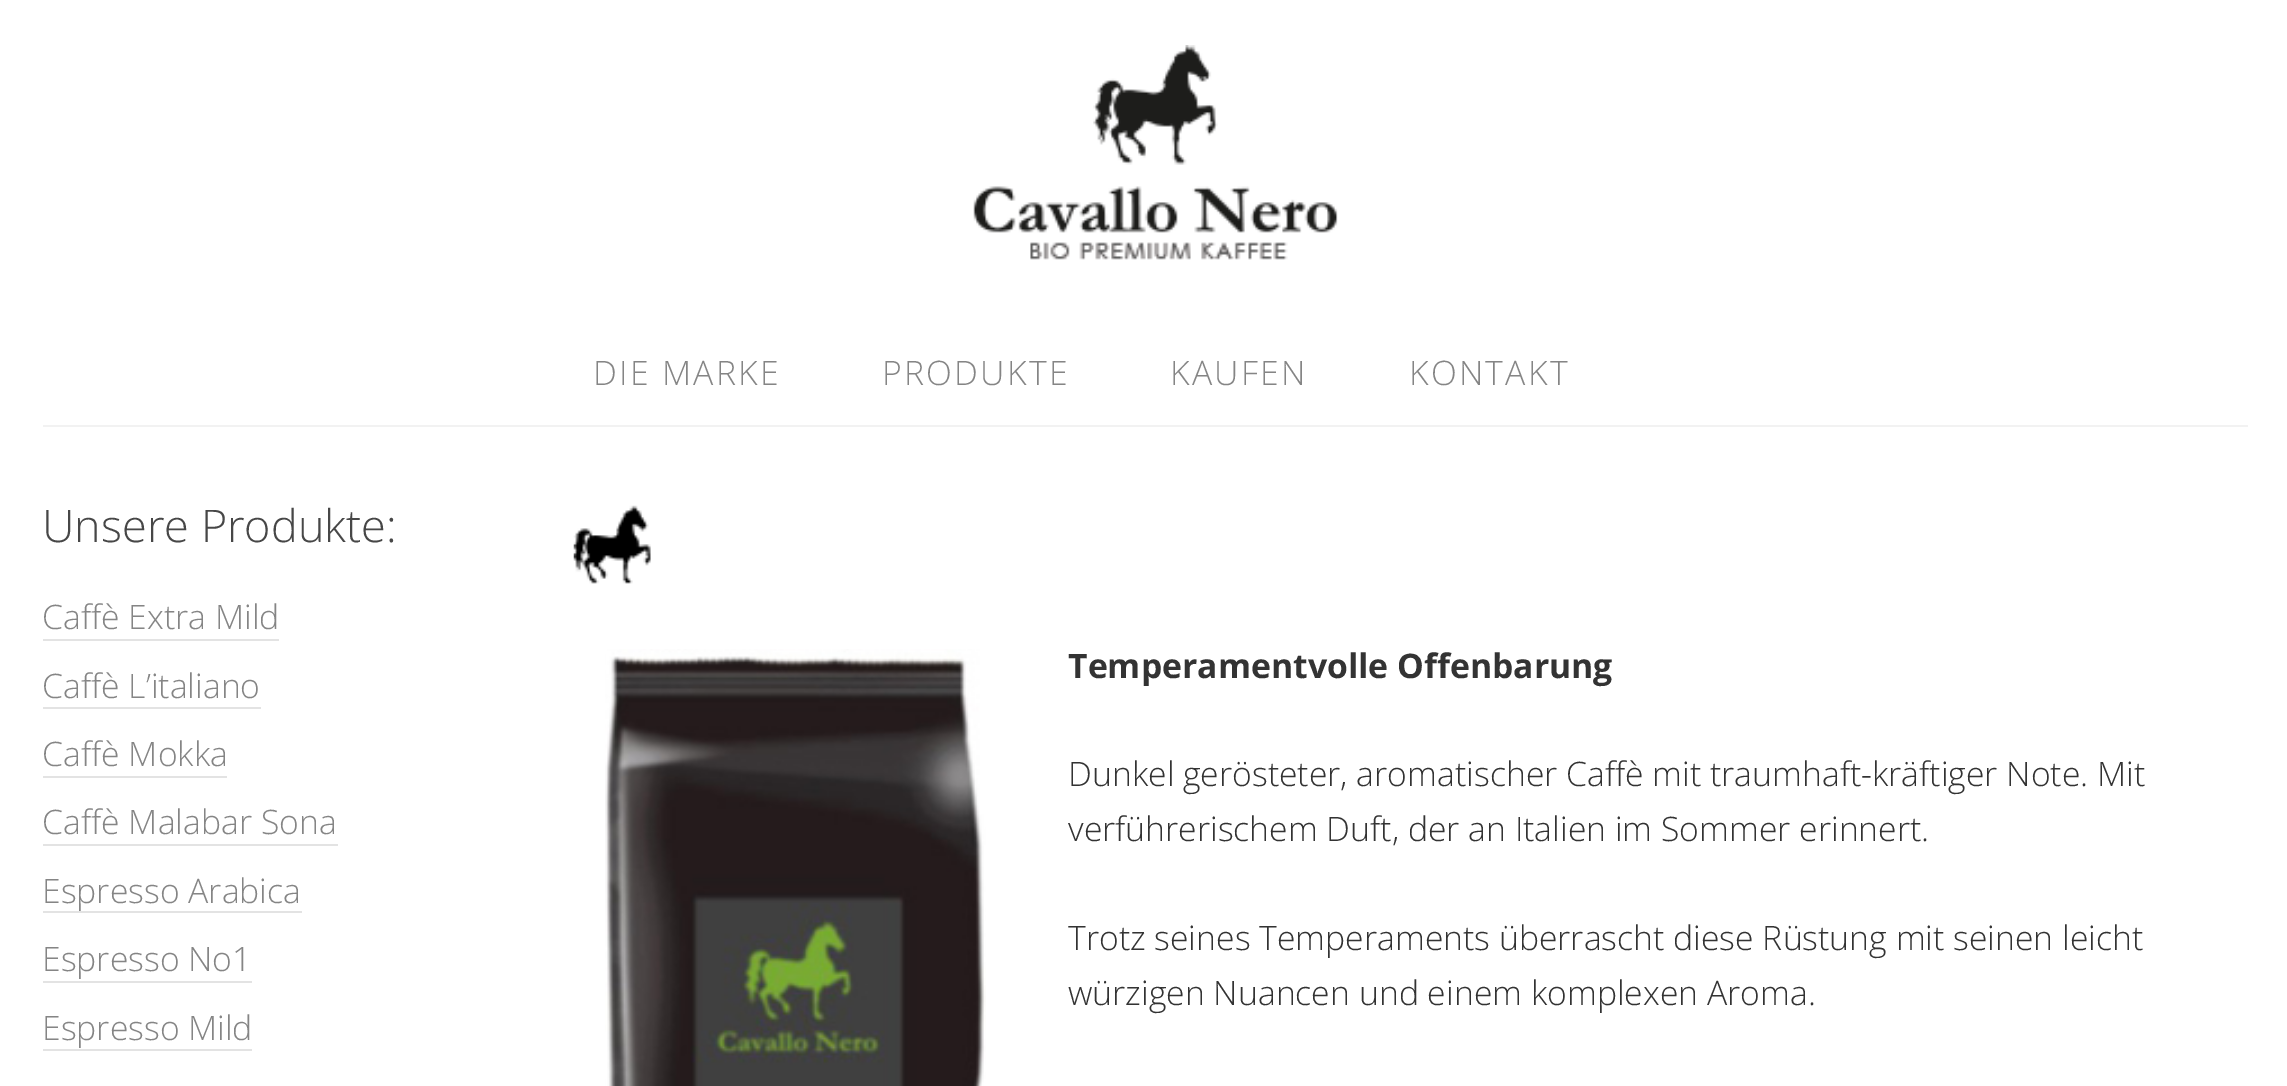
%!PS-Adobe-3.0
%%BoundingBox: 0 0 2287 1086
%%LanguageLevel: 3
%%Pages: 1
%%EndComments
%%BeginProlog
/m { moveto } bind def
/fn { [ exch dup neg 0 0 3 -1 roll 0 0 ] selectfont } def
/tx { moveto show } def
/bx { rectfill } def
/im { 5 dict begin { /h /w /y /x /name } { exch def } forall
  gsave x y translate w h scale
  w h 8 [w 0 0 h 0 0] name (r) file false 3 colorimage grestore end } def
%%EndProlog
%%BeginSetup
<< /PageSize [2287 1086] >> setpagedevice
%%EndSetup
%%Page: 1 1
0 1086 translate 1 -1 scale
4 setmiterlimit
1 setgray
0 0 2287 1086 bx
(image0.raw) 973 45 365 215 im
0.949 setgray
43 425 2205 2 bx
/OpenSans-Light 33.75 fn
0.522 setgray
593 385 m 2.25 0 (DIE MARKE) ashow
882 385 m 2.25 0 (PRODUKTE) ashow
1170 385 m 2.25 0 (KAUFEN) ashow
1409 385 m 2.25 0 (KONTAKT) ashow
/OpenSans-Light 45 fn
0.278 setgray
(Unsere Produkte:) 42 542 tx
/OpenSans-Light 33.75 fn
0.522 setgray
(Caffè Extra Mild) 42 629 tx
0.89 setgray
43 639 236 2 bx
0.522 setgray
(Caffè L’italiano) 42 698 tx
0.89 setgray
43 707 218 2 bx
0.522 setgray
(Caffè Mokka) 42 766 tx
0.89 setgray
43 776 184 2 bx
0.522 setgray
(Caffè Malabar Sona) 42 834 tx
0.89 setgray
43 844 295 2 bx
0.522 setgray
(Espresso Arabica) 42 903 tx
0.89 setgray
43 911 259 2 bx
0.522 setgray
(Espresso No1) 42 971 tx
0.89 setgray
43 981 209 2 bx
0.522 setgray
(Espresso Mild) 42 1040 tx
0.89 setgray
43 1049 209 2 bx
(image1.raw) 573 505 78 79 im
(image2.raw) 605 649 381 437 im
/OpenSans-Bold 33.75 fn
0.2 setgray
(Temperamentvolle Offenbarung) 1068 678 tx
/OpenSans-Light 33.75 fn
(Dunkel gerösteter, aromatischer Caffè mit traumhaft-kräftiger Note. Mit) 1068 786 tx
(verführerischem Duft, der an Italien im Sommer erinnert.) 1068 841 tx
(Trotz seines Temperaments überrascht diese Rüstung mit seinen leicht) 1068 950 tx
(würzigen Nuancen und einem komplexen Aroma.) 1068 1005 tx
showpage
%%EOF
